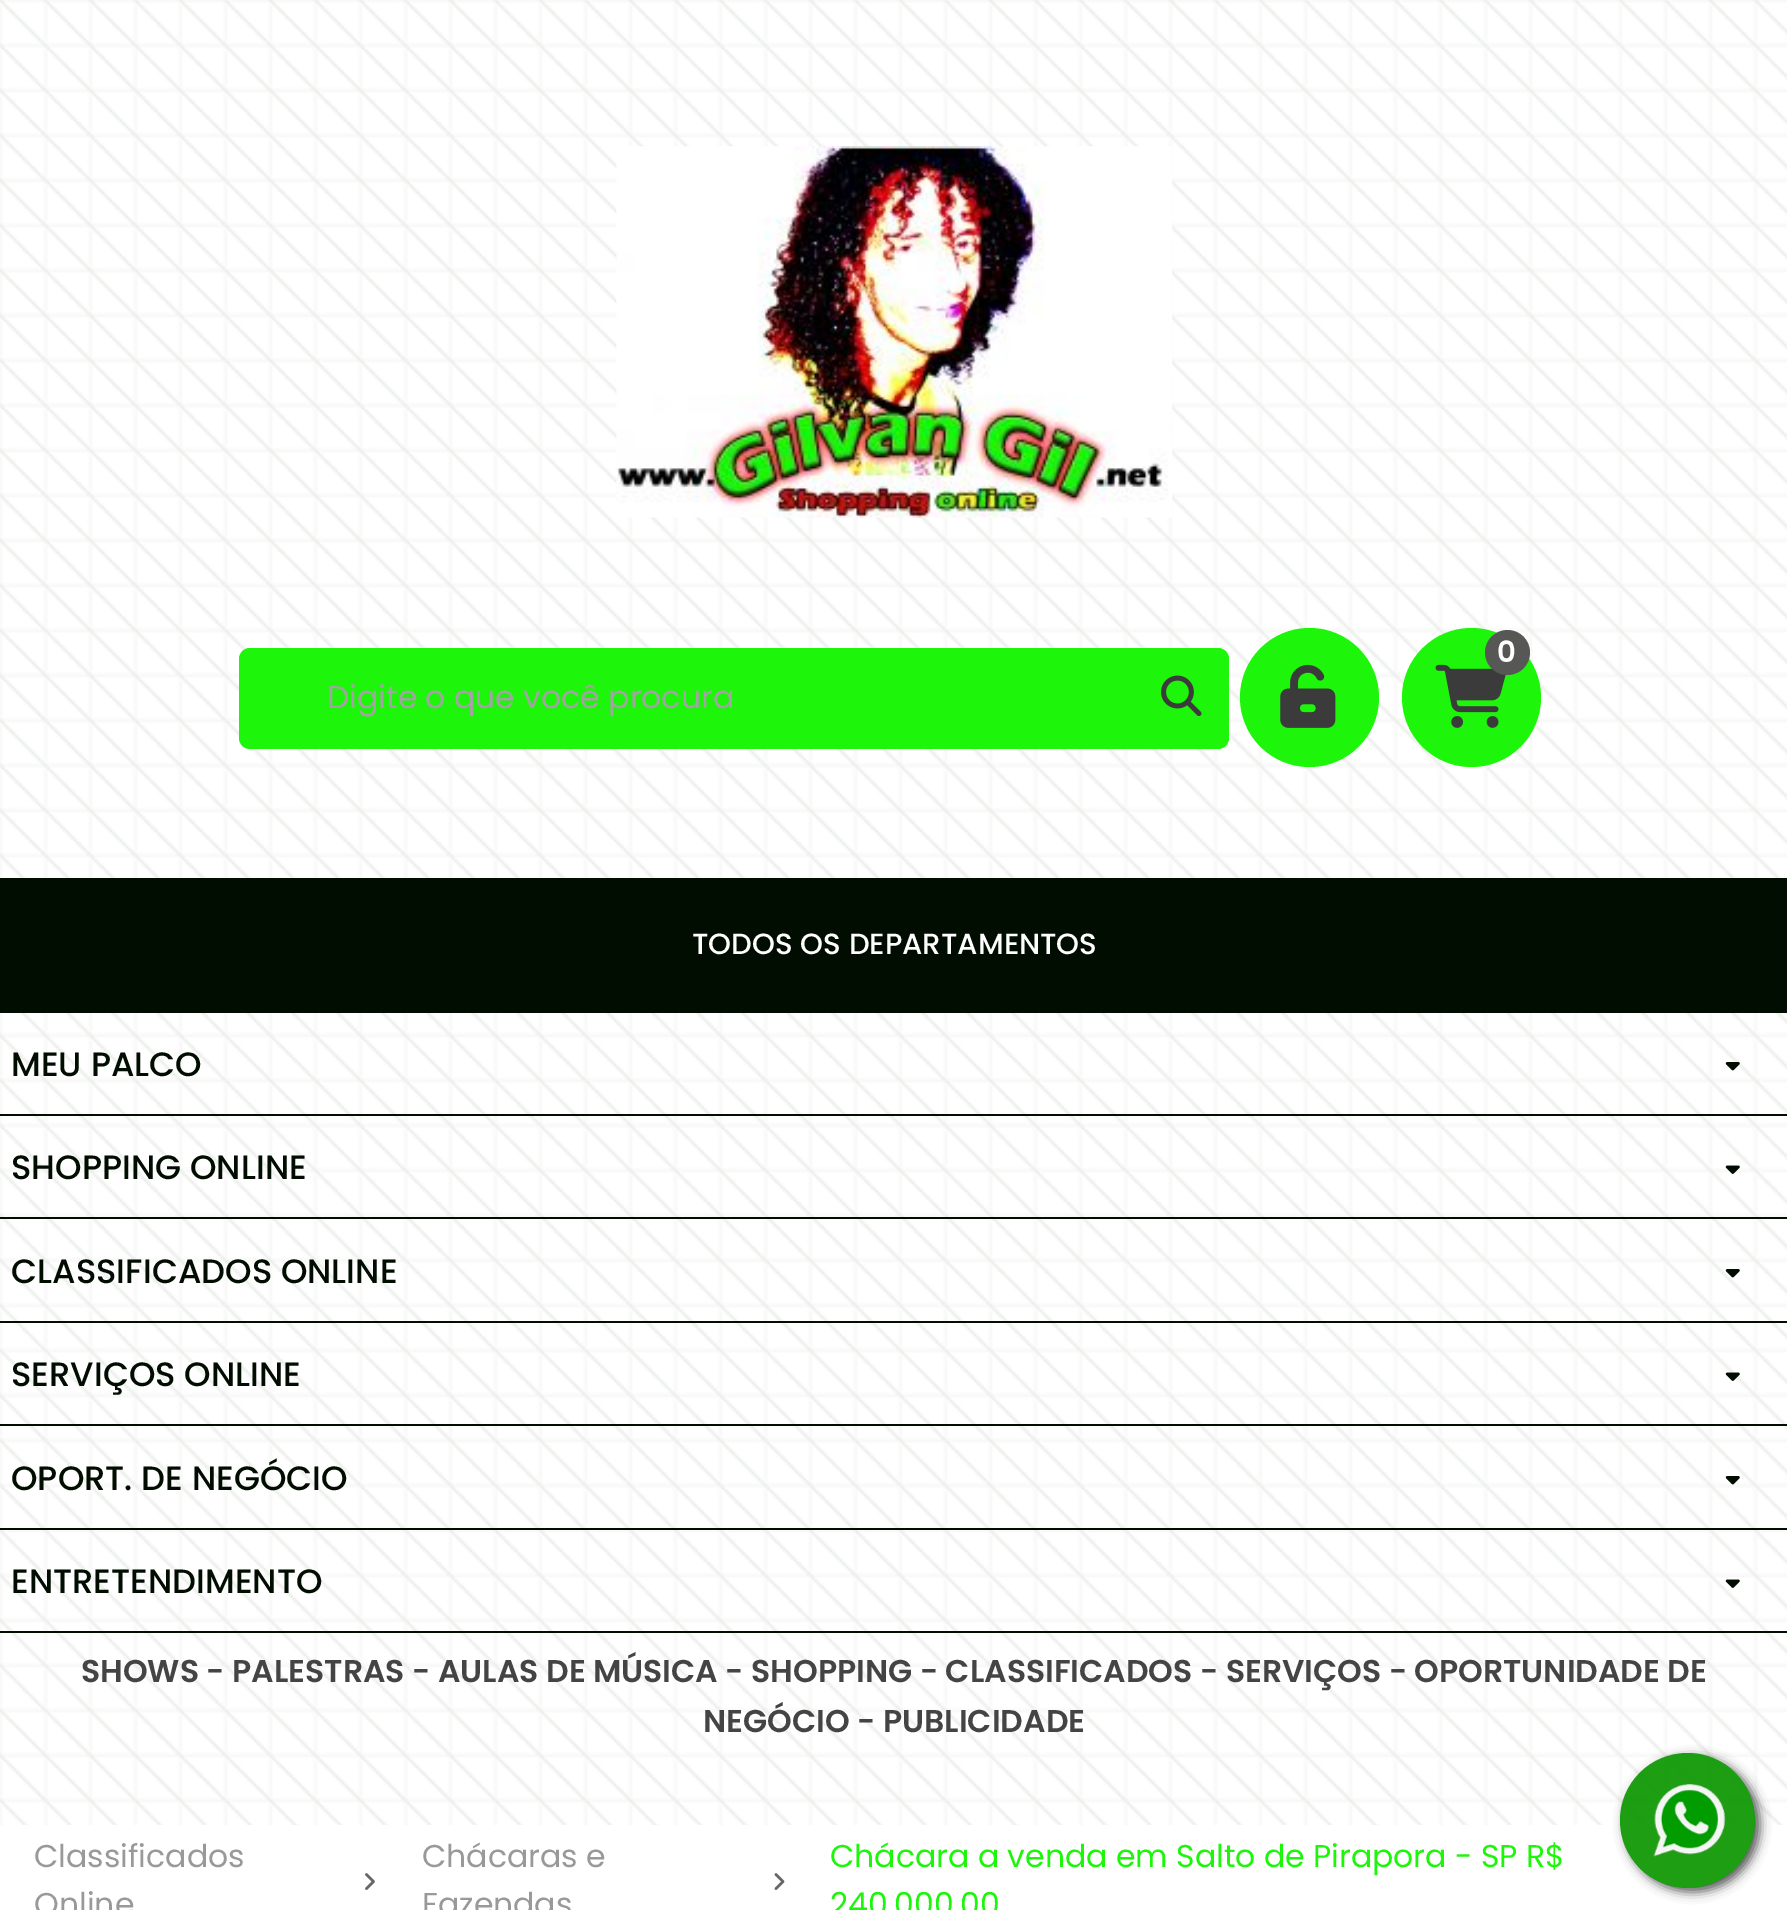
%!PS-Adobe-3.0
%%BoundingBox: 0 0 1787 1910
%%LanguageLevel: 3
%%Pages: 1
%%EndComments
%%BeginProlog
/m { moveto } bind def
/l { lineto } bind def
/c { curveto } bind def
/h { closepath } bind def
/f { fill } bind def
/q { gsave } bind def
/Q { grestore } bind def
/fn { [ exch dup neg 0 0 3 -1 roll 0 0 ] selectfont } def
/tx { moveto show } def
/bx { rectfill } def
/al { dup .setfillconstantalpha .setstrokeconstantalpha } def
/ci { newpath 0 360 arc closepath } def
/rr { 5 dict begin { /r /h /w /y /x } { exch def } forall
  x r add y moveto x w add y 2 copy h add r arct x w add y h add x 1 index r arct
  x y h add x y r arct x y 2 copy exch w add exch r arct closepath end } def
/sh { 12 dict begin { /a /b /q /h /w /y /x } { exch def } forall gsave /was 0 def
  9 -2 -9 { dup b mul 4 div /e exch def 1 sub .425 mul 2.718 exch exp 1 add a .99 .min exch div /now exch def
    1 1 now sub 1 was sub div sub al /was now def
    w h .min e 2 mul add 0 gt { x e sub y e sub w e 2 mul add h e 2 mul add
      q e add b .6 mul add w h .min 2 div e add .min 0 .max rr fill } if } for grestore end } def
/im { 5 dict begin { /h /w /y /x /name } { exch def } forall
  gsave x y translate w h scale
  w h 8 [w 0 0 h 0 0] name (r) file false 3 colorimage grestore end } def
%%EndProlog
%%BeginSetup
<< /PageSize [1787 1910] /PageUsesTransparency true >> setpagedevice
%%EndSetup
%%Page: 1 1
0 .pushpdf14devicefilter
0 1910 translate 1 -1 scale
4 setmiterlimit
0.831 0.871 0.827 setrgbcolor
0 0 1787 1910 bx
(image0.raw) 0 0 1787 1825 im
(image1.raw) 616 146 557 372 im
0.114 0.961 0.039 setrgbcolor
1309.5 697.5 69.5 ci f
(image2.raw) 1280 664 56 64 im
1471.5 697.5 69.5 ci f
(image3.raw) 1435 664 71 64 im
0.341 0.341 0.337 setrgbcolor
1507.5 652.5 22.5 ci f
/Poppins-SemiBold 29.25 fn
1 setgray
(0) 1497 662 tx
0.114 0.961 0.039 setrgbcolor
239 648 990 101 11 rr f
/Poppins-Regular 31.5 fn
0.639 setgray
(Digite o que você procura) 327 708 tx
(image4.raw) 1161 675 41 41 im
0.008 0.051 0.004 setrgbcolor
0 878 1787 135 bx
/Poppins-Medium 29.25 fn
1 setgray
(TODOS OS DEPARTAMENTOS) 692 954 tx
0.008 0.051 0.004 setrgbcolor
0 1114 1787 2 bx
/Poppins-Medium 33.75 fn
(MEU PALCO) 11 1076 tx
(image5.raw) 1725 1062 15 9 im
0 1217 1787 2 bx
(SHOPPING ONLINE) 11 1179 tx
(image6.raw) 1725 1165 15 9 im
0 1321 1787 2 bx
(CLASSIFICADOS ONLINE) 11 1283 tx
(image7.raw) 1725 1269 15 9 im
0 1424 1787 2 bx
(SERVIÇOS ONLINE) 11 1386 tx
(image8.raw) 1725 1372 15 9 im
0 1528 1787 2 bx
(OPORT. DE NEGÓCIO) 11 1490 tx
(image9.raw) 1725 1476 15 9 im
0 1631 1787 2 bx
(ENTRETENDIMENTO) 11 1593 tx
(image10.raw) 1725 1579 15 9 im
/Poppins-SemiBold 31.5 fn
0.267 setgray
(SHOWS - PALESTRAS - AULAS DE MÚSICA - SHOPPING - CLASSIFICADOS - SERVIÇOS - OPORTUNIDADE DE) 81 1682 tx
(NEGÓCIO - PUBLICIDADE) 703 1732 tx
1 setgray
0 1825 1787 85 bx
/Poppins-Regular 31.5 fn
0.6 setgray
(Classificados) 34 1867 tx
(Online) 34 1915 tx
(image11.raw) 365 1873 10 17 im
(Chácaras e) 422 1867 tx
(Fazendas) 422 1915 tx
(image12.raw) 774 1873 11 17 im
0.114 0.961 0.039 setrgbcolor
(Chácara a venda em Salto de Pirapora - SP R$) 830 1867 tx
(240.000,00) 830 1915 tx
q
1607 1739 m 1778 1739 l 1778 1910 l 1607 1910 l h 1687.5 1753 m 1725 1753 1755 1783 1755 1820.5 c 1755 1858 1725 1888 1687.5 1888 c 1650 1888 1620 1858 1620 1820.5 c 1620 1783 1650 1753 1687.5 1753 c h eoclip newpath
0.333 setgray
1625 1757 135 135 67.5 5.5 0.98 sh
Q
0.98 al
0.094 0.612 0.055 setrgbcolor
1687.5 1820.5 67.5 ci f
1 al
(image13.raw) 1653 1784 73 73 im
.poppdf14devicefilter showpage
%%EOF
